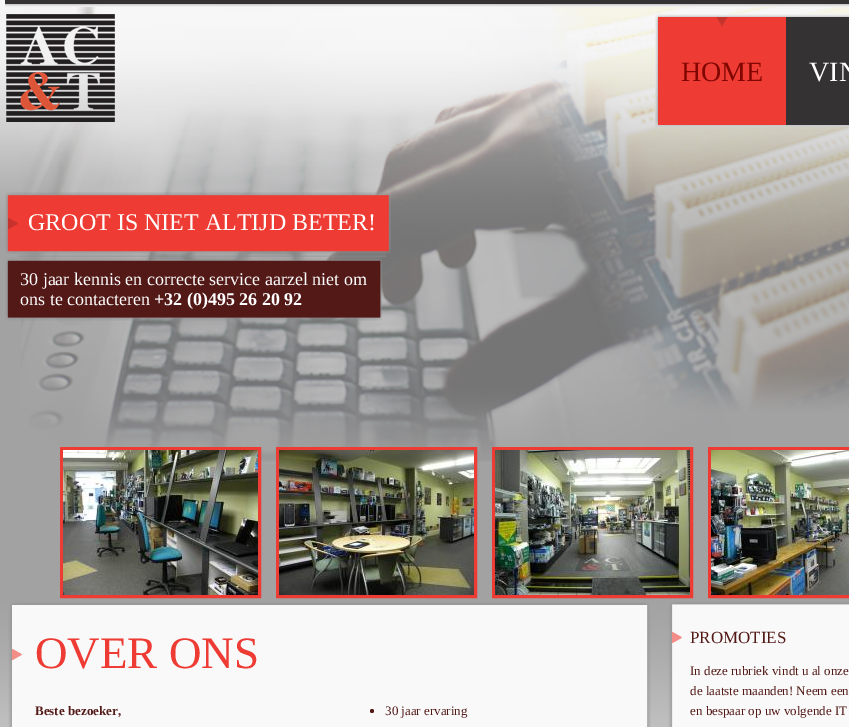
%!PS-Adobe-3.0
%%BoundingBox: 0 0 849 727
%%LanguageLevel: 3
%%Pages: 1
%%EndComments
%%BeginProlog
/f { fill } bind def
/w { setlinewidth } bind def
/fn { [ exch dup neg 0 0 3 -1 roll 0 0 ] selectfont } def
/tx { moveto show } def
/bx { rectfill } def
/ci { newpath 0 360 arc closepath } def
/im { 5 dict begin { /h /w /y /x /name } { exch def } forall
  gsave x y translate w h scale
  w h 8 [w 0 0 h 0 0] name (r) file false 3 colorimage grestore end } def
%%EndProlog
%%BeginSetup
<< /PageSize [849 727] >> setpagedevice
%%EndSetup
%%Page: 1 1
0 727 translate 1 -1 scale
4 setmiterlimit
1 setgray
0 0 849 727 bx
(image0.raw) 0 0 849 727 im
(image1.raw) 21 7 828 457 im
(image2.raw) 5 0 844 7 im
(image3.raw) 6 14 109 108 im
(image4.raw) 655 14 194 113 im
(image5.raw) 655 14 4 112 im
0.933 0.231 0.2 setrgbcolor
658 17 128 108 bx
(image6.raw) 716 17 12 10 im
/LiberationSerif-Regular 28 fn
0.506 0.024 0.004 setrgbcolor
(HOME) 681 81 tx
0.208 0.196 0.2 setrgbcolor
786 123 63 2 bx
1 setgray
(VIN) 809 81 tx
(image7.raw) 5 192 13 62 im
(image8.raw) 18 192 368 65 im
/LiberationSerif-Regular 24 fn
(GROOT IS NIET ALTIJD BETER!) 28 230 tx
(image9.raw) 386 192 5 62 im
(image10.raw) 5 258 5 62 im
(image11.raw) 10 257 367 64 im
/LiberationSerif-Regular 18 fn
(30 jaar kennis en correcte service aarzel niet om) 20 285 tx
(ons te contacteren) 20 305 tx
/LiberationSerif-Bold 18 fn
(+32 \(0\)495 26 20 92) 154 305 tx
(image12.raw) 377 257 5 64 im
0.933 0.231 0.2 setrgbcolor
3 w
61.5 448.5 198 148 rectstroke
(image13.raw) 63 450 195 145 im
277.5 448.5 198 148 rectstroke
(image14.raw) 279 450 195 145 im
493.5 448.5 198 148 rectstroke
(image15.raw) 495 450 195 145 im
709.5 448.5 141 148 rectstroke
(image16.raw) 711 450 138 145 im
(image17.raw) 9 602 641 11 im
(image18.raw) 8 613 643 114 im
(image19.raw) 12 649 10 11 im
/LiberationSerif-Regular 45 fn
(OVER ONS) 35 668 tx
/LiberationSerif-Bold 13 fn
0.322 0.098 0.09 setrgbcolor
(Beste bezoeker,) 35 715 tx
372 711 2 ci f
/LiberationSerif-Regular 13 fn
(30 jaar ervaring) 385 715 tx
(image20.raw) 669 602 180 7 im
(image21.raw) 668 609 181 118 im
(image19.raw) 672 632 10 11 im
/LiberationSerif-Regular 17 fn
(PROMOTIES) 690 643 tx
/LiberationSerif-Regular 13 fn
(In deze rubriek vindt u al onze) 690 675 tx
(de laatste maanden! Neem een) 690 695 tx
(en bespaar op uw volgende IT) 690 715 tx
showpage
%%EOF
